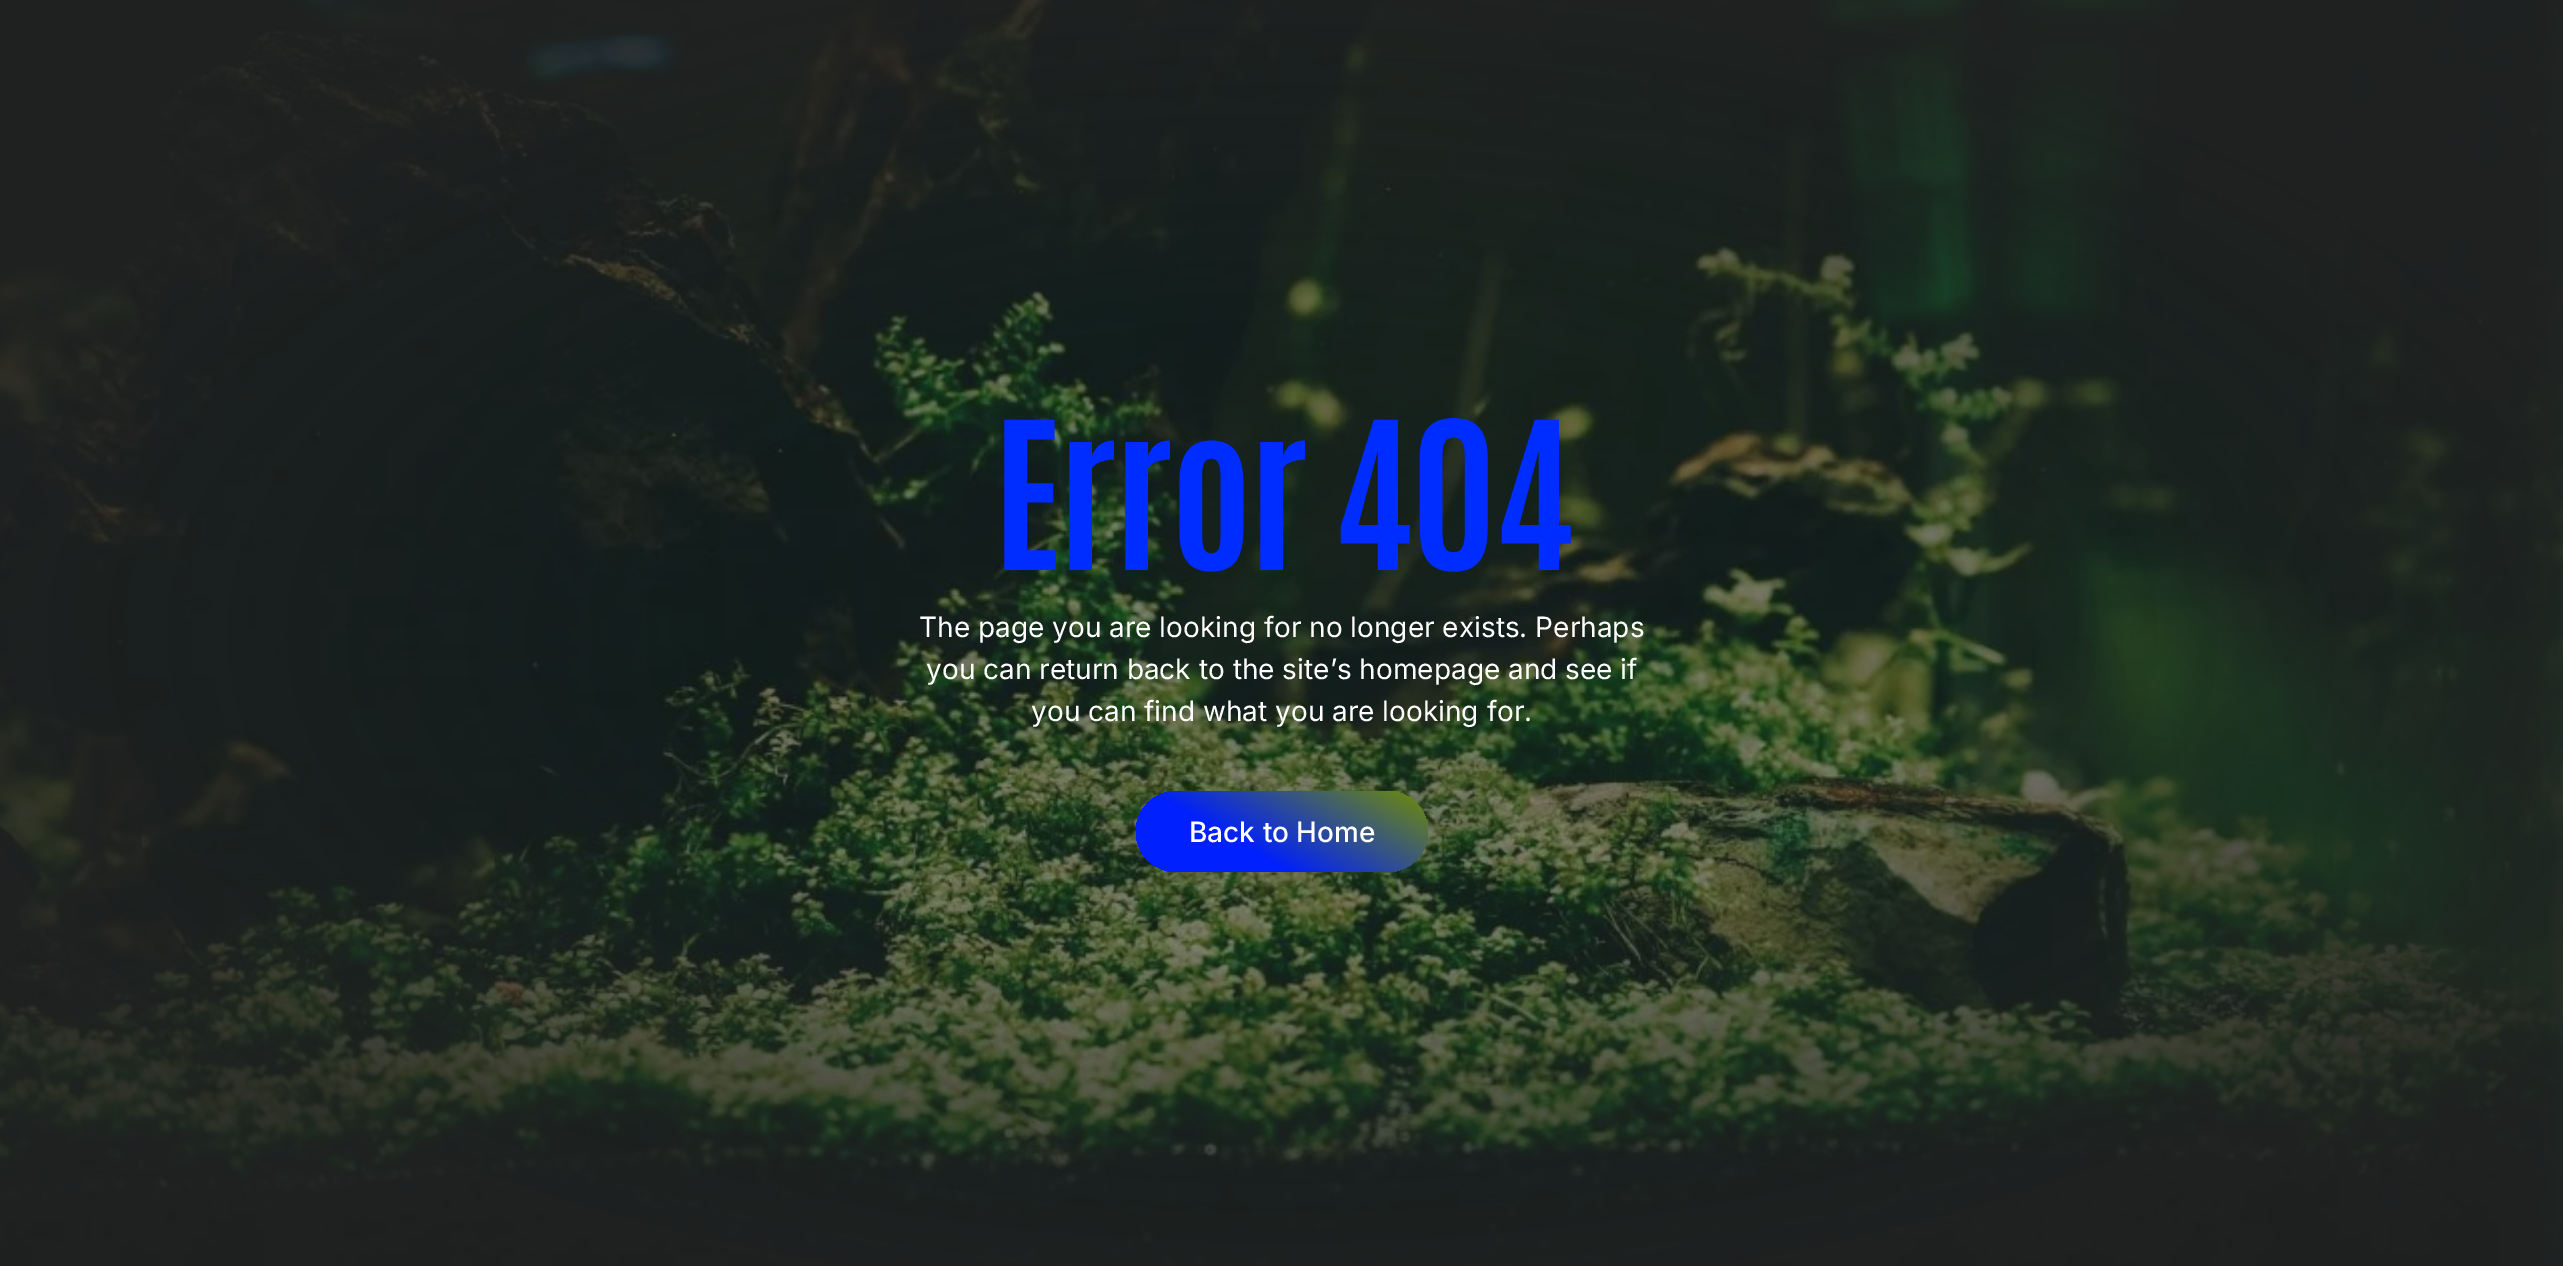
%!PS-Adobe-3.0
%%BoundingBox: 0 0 2563 1266
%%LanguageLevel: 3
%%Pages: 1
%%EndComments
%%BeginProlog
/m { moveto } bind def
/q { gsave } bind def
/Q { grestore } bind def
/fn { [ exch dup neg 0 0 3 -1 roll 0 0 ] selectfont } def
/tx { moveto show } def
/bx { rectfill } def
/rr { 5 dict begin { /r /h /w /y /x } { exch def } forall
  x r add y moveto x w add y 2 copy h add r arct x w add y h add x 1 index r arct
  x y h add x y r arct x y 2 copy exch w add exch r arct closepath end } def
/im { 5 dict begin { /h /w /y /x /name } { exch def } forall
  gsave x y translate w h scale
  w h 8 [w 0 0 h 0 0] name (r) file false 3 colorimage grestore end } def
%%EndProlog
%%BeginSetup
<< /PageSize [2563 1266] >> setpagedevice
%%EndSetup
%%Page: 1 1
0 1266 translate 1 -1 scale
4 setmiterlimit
1 setgray
0 0 2563 1266 bx
(image0.raw) 0 0 2563 1266 im
/Antonio-Bold 175 fn
0 0.176 1 setrgbcolor
993 570 m -3.5 0 (Error 404) ashow
/Inter-Regular 28 fn
1 setgray
(The page you are looking for no longer exists. Perhaps) 919 637 tx
(you can return back to the site’s homepage and see if) 926 679 tx
(you can find what you are looking for.) 1031 721 tx
q 1136 791 292 81 40.5 rr clip newpath
<< /ShadingType 2 /ColorSpace /DeviceRGB /Coords [1336 738 1228 925] /Extend [true true] /Function << /FunctionType 3 /Domain [0 1] /Functions [<< /FunctionType 2 /Domain [0 1] /C0 [0.443 0.557 0.012] /C1 [0 0.125 0.992] /N 1 >> << /FunctionType 2 /Domain [0 1] /C0 [0 0.125 0.992] /C1 [0 0.125 0.992] /N 1 >>] /Bounds [0.65] /Encode [0 1 0 1] >> >> shfill Q
/Inter-Medium 28 fn
(Back to Home) 1189 842 tx
showpage
%%EOF
